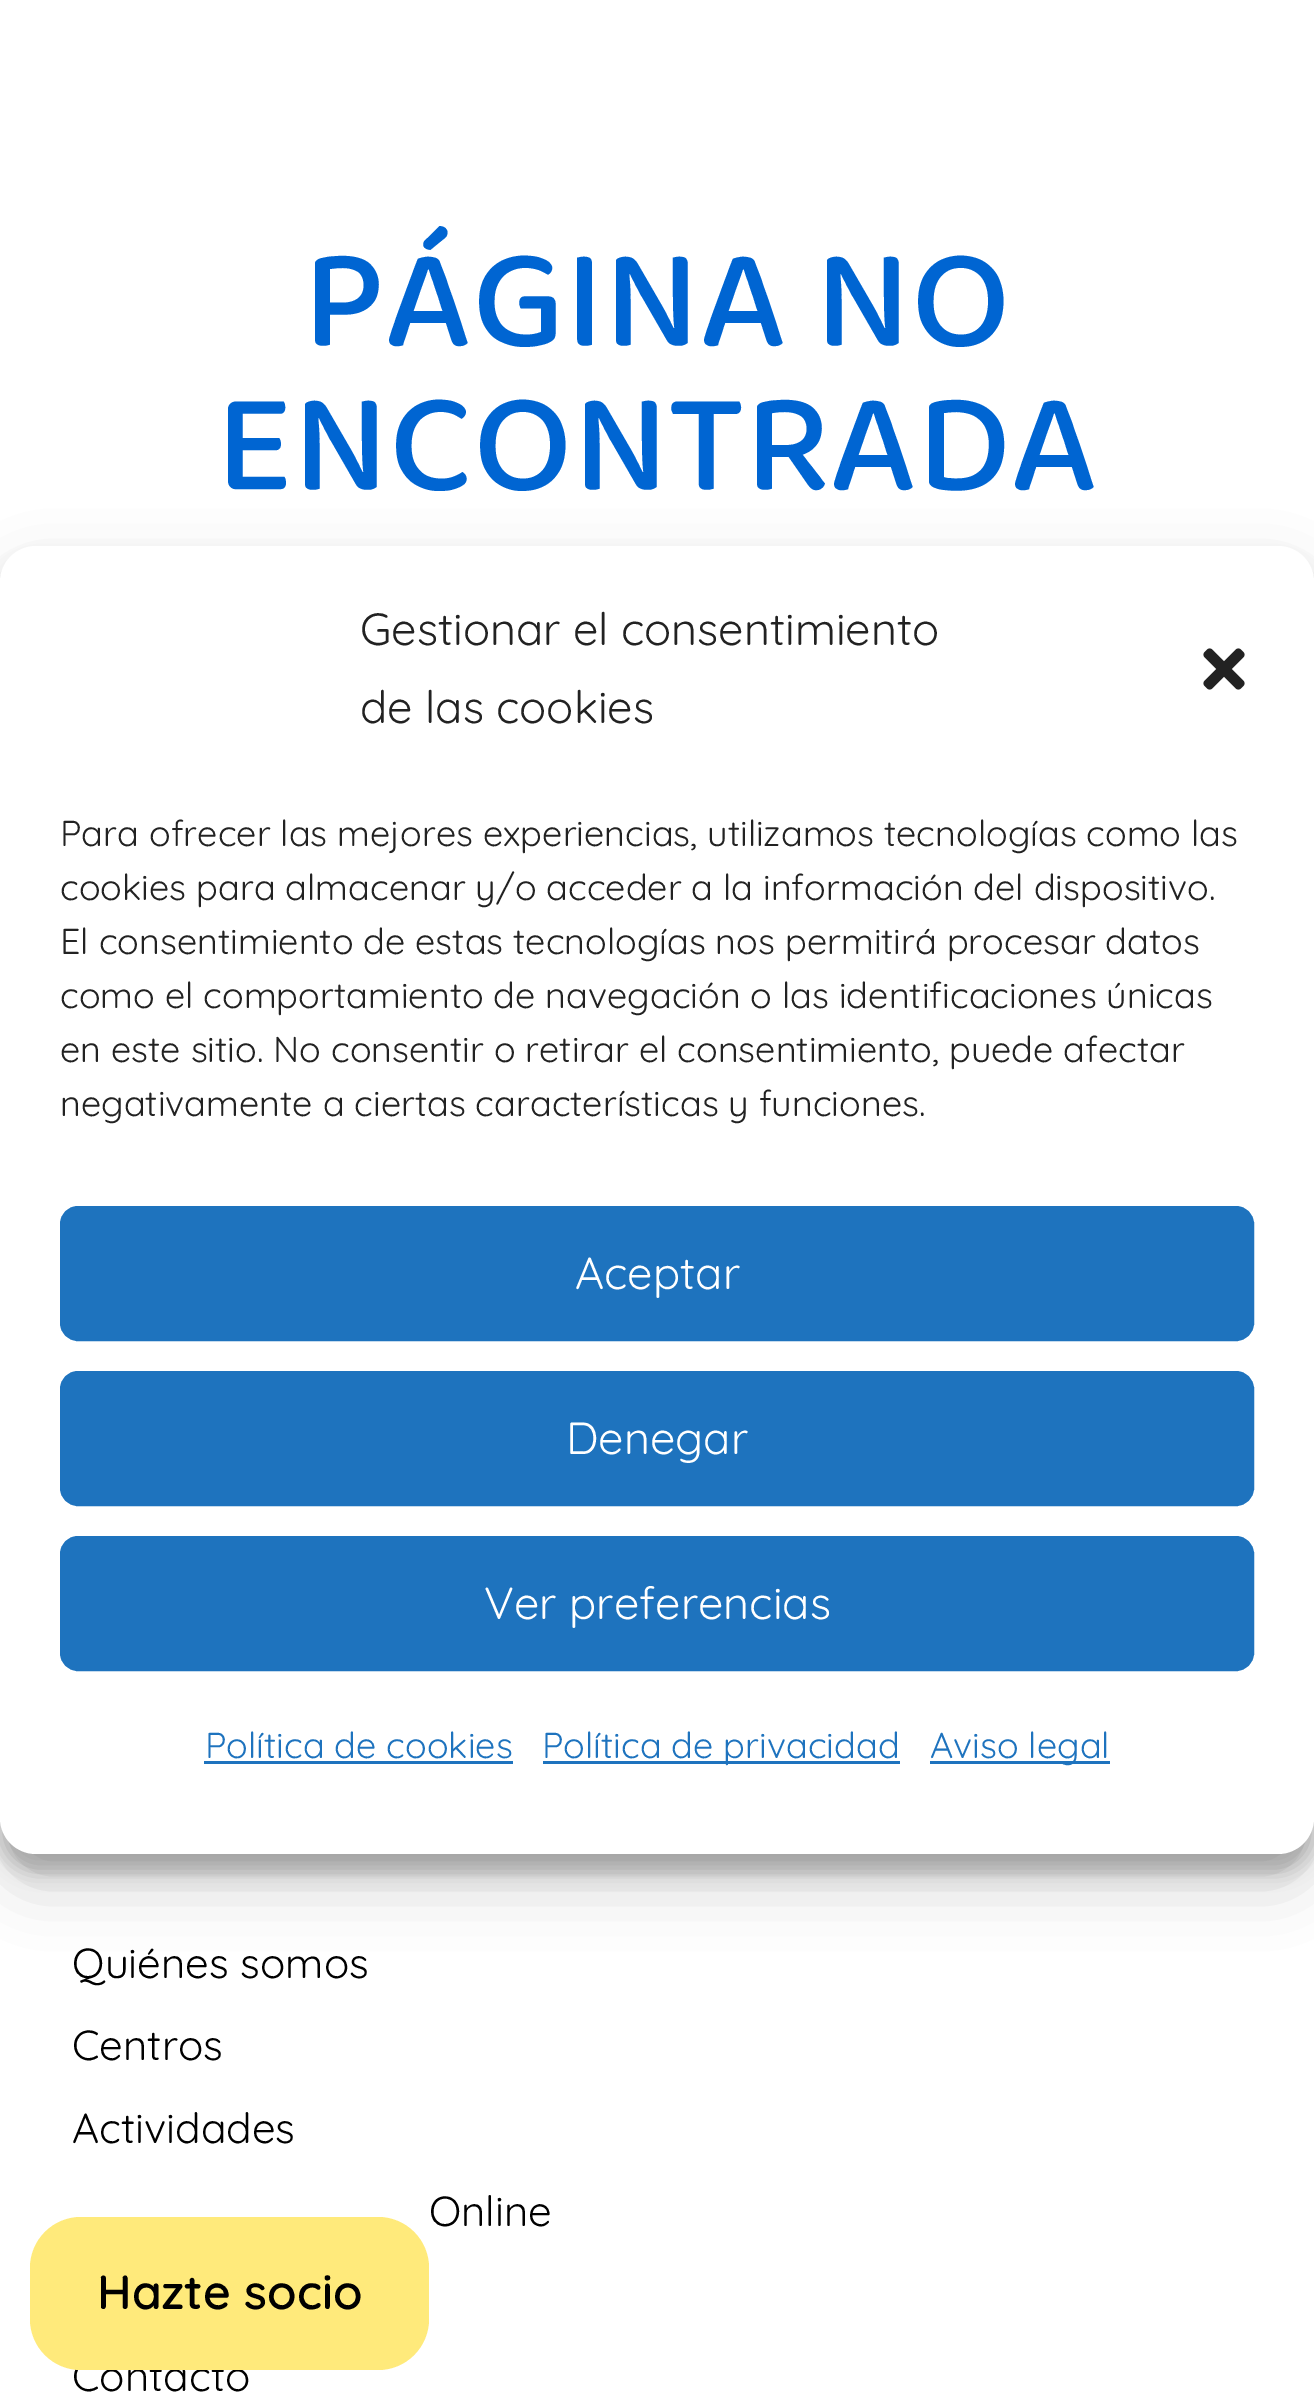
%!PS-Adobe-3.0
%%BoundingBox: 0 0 1314 2399
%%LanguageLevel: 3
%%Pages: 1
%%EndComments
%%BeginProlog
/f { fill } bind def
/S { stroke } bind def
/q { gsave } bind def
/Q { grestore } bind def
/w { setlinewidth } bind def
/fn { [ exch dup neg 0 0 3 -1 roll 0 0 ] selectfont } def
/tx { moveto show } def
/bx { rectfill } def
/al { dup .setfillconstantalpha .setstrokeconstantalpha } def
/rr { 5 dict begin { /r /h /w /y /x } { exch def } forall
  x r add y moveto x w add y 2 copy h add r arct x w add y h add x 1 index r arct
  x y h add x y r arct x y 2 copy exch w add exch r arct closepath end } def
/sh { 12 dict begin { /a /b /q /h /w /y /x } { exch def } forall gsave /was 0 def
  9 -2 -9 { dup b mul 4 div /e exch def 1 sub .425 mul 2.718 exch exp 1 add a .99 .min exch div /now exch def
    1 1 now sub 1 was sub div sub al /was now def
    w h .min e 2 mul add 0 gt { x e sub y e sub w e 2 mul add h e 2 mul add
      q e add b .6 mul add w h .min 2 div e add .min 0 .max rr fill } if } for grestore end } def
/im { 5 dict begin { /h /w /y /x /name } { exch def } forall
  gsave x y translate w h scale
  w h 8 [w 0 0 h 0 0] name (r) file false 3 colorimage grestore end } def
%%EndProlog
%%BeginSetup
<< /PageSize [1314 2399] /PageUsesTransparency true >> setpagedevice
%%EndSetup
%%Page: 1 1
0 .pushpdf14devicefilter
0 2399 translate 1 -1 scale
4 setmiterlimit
1 setgray
0 0 1314 2399 bx
/Baloo2-Medium 144 fn
0 0.396 0.824 setrgbcolor
(PÁGINA NO) 303 345 tx
(ENCONTRADA) 216 489 tx
/Quicksand-Regular 42 fn
0 setgray
(Contacto) 72 2391 tx
1 0.918 0.482 setrgbcolor
30 2217 399 153 51 rr f
/Quicksand-SemiBold 48 fn
0 setgray
(Hazte socio) 97 2309 tx
0 564 1314 1308 36 9 0.23 sh
0 576 1314 1308 36 30 0.19 sh
1 setgray
0 546 1314 1308 36 rr f
/Quicksand-Regular 45 fn
0.133 setgray
(Gestionar el consentimiento) 360 645 tx
(de las cookies) 360 723 tx
(image0.raw) 1203 648 42 42 im
/Quicksand-Regular 36 fn
(Para ofrecer las mejores experiencias, utilizamos tecnologías como las) 60 846 tx
(cookies para almacenar y/o acceder a la información del dispositivo.) 60 900 tx
(El consentimiento de estas tecnologías nos permitirá procesar datos) 60 954 tx
(como el comportamiento de navegación o las identificaciones únicas) 60 1008 tx
(en este sitio. No consentir o retirar el consentimiento, puede afectar) 60 1062 tx
(negativamente a ciertas características y funciones.) 60 1116 tx
0.118 0.451 0.745 setrgbcolor
61.5 1207.5 1191 132 16.5 rr q f Q
3 w
S
/Quicksand-Regular 45 fn
1 setgray
(Aceptar) 575 1289 tx
0.118 0.451 0.745 setrgbcolor
61.5 1372.5 1191 132 16.5 rr q f Q
S
1 setgray
(Denegar) 566 1454 tx
0.118 0.451 0.745 setrgbcolor
61.5 1537.5 1191 132 16.5 rr q f Q
S
1 setgray
(Ver preferencias) 484 1619 tx
/Quicksand-Regular 36 fn
0.118 0.451 0.745 setrgbcolor
(Política de cookies) 205 1758 tx
204 1761 309 3 bx
543 1761 357 3 bx
(Política de privacidad) 542 1758 tx
930 1761 180 3 bx
(Aviso legal) 930 1758 tx
/Quicksand-Regular 42 fn
0 setgray
(Quiénes somos) 72 1978 tx
(Centros) 72 2060 tx
(Actividades) 72 2143 tx
(Online) 429 2226 tx
.poppdf14devicefilter showpage
%%EOF
